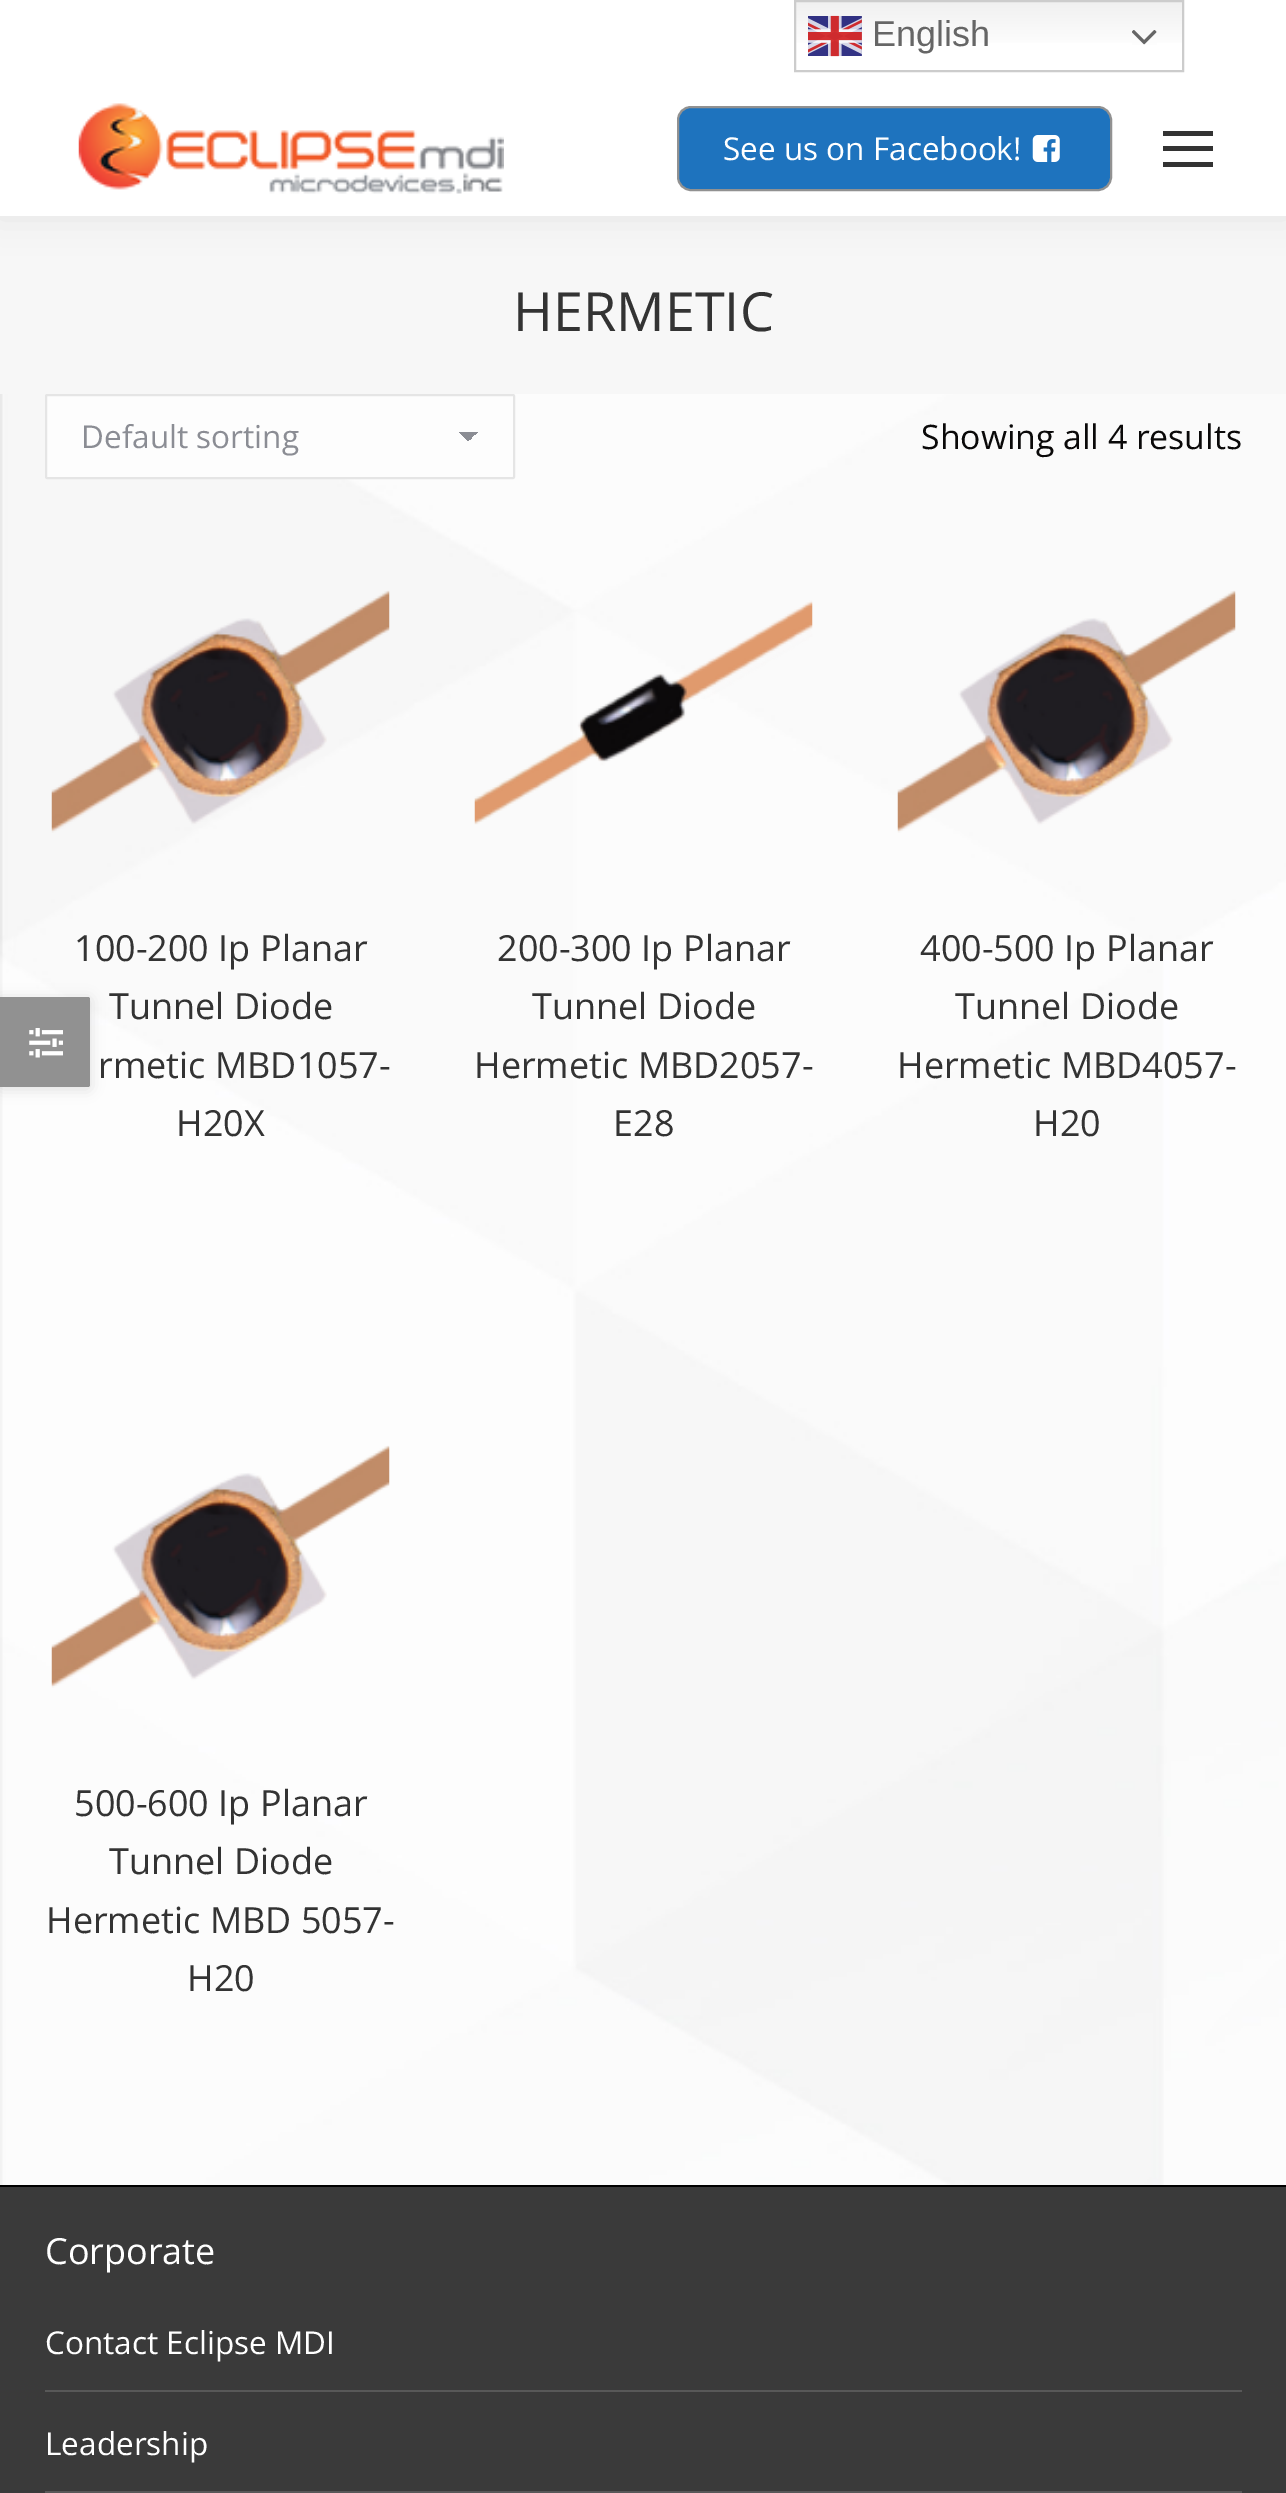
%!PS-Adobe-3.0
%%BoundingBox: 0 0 1286 2493
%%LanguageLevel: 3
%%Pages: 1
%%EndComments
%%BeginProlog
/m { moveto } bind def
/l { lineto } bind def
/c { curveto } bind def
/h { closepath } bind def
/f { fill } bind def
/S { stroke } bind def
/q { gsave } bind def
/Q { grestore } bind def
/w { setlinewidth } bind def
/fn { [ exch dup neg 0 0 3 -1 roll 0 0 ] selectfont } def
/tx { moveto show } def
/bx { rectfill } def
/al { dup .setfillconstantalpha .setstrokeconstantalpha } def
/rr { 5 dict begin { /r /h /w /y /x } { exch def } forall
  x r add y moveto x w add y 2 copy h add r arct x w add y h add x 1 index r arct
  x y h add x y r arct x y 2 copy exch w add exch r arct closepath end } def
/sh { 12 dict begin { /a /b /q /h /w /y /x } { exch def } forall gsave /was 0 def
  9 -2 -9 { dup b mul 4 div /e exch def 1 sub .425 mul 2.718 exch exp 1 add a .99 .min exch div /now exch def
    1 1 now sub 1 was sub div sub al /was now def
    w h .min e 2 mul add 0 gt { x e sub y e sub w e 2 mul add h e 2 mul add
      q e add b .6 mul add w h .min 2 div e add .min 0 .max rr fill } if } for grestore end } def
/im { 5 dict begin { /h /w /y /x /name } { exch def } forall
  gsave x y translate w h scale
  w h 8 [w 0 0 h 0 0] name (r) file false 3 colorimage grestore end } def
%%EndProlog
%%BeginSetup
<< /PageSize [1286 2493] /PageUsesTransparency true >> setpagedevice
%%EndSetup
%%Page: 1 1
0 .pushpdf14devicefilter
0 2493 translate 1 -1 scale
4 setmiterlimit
1 setgray
0 0 1286 2493 bx
0.969 setgray
0 216 1286 178 bx
0 setgray
-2 -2 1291 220 0 17 0.07 sh
1 setgray
0 0 1286 216 bx
q 796 2 m 1182 2 l 1182 43 l 796 43 l h clip newpath
<< /ShadingType 2 /ColorSpace /DeviceRGB /Coords [989 0 989 72] /Extend [true true] /Function << /FunctionType 3 /Domain [0 1] /Functions [<< /FunctionType 2 /Domain [0 1] /C0 [0.937 0.937 0.937] /C1 [1 1 1] /N 1 >> << /FunctionType 2 /Domain [0 1] /C0 [1 1 1] /C1 [1 1 1] /N 1 >>] /Bounds [0.7] /Encode [0 1 0 1] >> >> shfill Q
0.8 setgray
2 w
795 1 388 70 rectstroke
(image0.raw) 808 15 54 42 im
/LiberationSans-Regular 36 fn
0.4 setgray
(English) 872 46 tx
(image1.raw) 1132 30 25 15 im
(image2.raw) 0 394 1286 1791 im
(image3.raw) 78 103 426 91 im
0.118 0.451 0.745 setrgbcolor
678 107 433 83 13 rr q f Q
0.569 setgray
S
/OpenSans-Regular 31.5 fn
1 setgray
(See us on Facebook!) 723 160 tx
(image4.raw) 1032 135 28 27 im
0.2 setgray
1163 131 50 5 bx
1163 146 50 5 bx
1163 162 50 5 bx
/OpenSans-Regular 54 fn
(HERMETIC) 513 331 tx
0.992 setgray
45 394 470 85 2 rr f
q 468 432 m 478 432 l 478 441 l 468 441 l h clip newpath
<< /ShadingType 2 /ColorSpace /DeviceRGB /Coords [468 431 479 442] /Extend [true true] /Function << /FunctionType 3 /Domain [0 1] /Functions [<< /FunctionType 2 /Domain [0 1] /C0 [0.545 0.553 0.58] /C1 [0.545 0.553 0.58] /N 1 >> << /FunctionType 2 /Domain [0 1] /C0 [0.992 0.992 0.992] /C1 [0.992 0.992 0.992] /N 1 >>] /Bounds [0.5] /Encode [0 1 0 1] >> >> shfill Q
q 459 432 m 468 432 l 468 441 l 459 441 l h clip newpath
<< /ShadingType 2 /ColorSpace /DeviceRGB /Coords [457 442 468 431] /Extend [true true] /Function << /FunctionType 3 /Domain [0 1] /Functions [<< /FunctionType 2 /Domain [0 1] /C0 [0.992 0.992 0.992] /C1 [0.992 0.992 0.992] /N 1 >> << /FunctionType 2 /Domain [0 1] /C0 [0.545 0.553 0.58] /C1 [0.545 0.553 0.58] /N 1 >>] /Bounds [0.5] /Encode [0 1 0 1] >> >> shfill Q
0.898 setgray
46 395 468 83 1 rr S
/OpenSans-Regular 31.5 fn
0.545 0.553 0.58 setrgbcolor
(Default sorting) 81 448 tx
/OpenSans-Regular 33.75 fn
0.039 0.035 0.035 setrgbcolor
(Showing all 4 results) 921 449 tx
(image5.raw) 51 590 339 243 im
/OpenSans-Regular 36 fn
0.2 setgray
(100-200 Ip Planar) 74 961 tx
(Tunnel Diode) 109 1019 tx
(rmetic MBD1057-) 98 1078 tx
(H20X) 176 1136 tx
(image6.raw) 474 600 339 225 im
(200-300 Ip Planar) 497 961 tx
(Tunnel Diode) 532 1019 tx
(Hermetic MBD2057-) 474 1078 tx
(E28) 613 1136 tx
(image7.raw) 897 590 339 243 im
(400-500 Ip Planar) 920 961 tx
(Tunnel Diode) 955 1019 tx
(Hermetic MBD4057-) 897 1078 tx
(H20) 1033 1136 tx
(image8.raw) 51 1445 339 243 im
(500-600 Ip Planar) 74 1816 tx
(Tunnel Diode) 109 1874 tx
(Hermetic MBD 5057-) 46 1933 tx
(H20) 187 1991 tx
0 setgray
0 999 90 90 2 7 0.12 sh
0.569 setgray
0 997 m 88 997 l 89 997 90 998 90 999 c 90 1085 l 90 1086 89 1087 88 1087 c 0 1087 l h f
(image9.raw) 29 1028 34 30 im
0.227 setgray
0 2187 1286 306 bx
0 setgray
0 2185 1286 2 bx
1 setgray
(Corporate) 45 2264 tx
/OpenSans-Regular 31.5 fn
(Contact Eclipse MDI) 45 2354 tx
0.345 setgray
45 2390 1197 2 bx
1 setgray
(Leadership) 45 2455 tx
0.345 setgray
45 2491 1197 2 bx
.poppdf14devicefilter showpage
%%EOF
